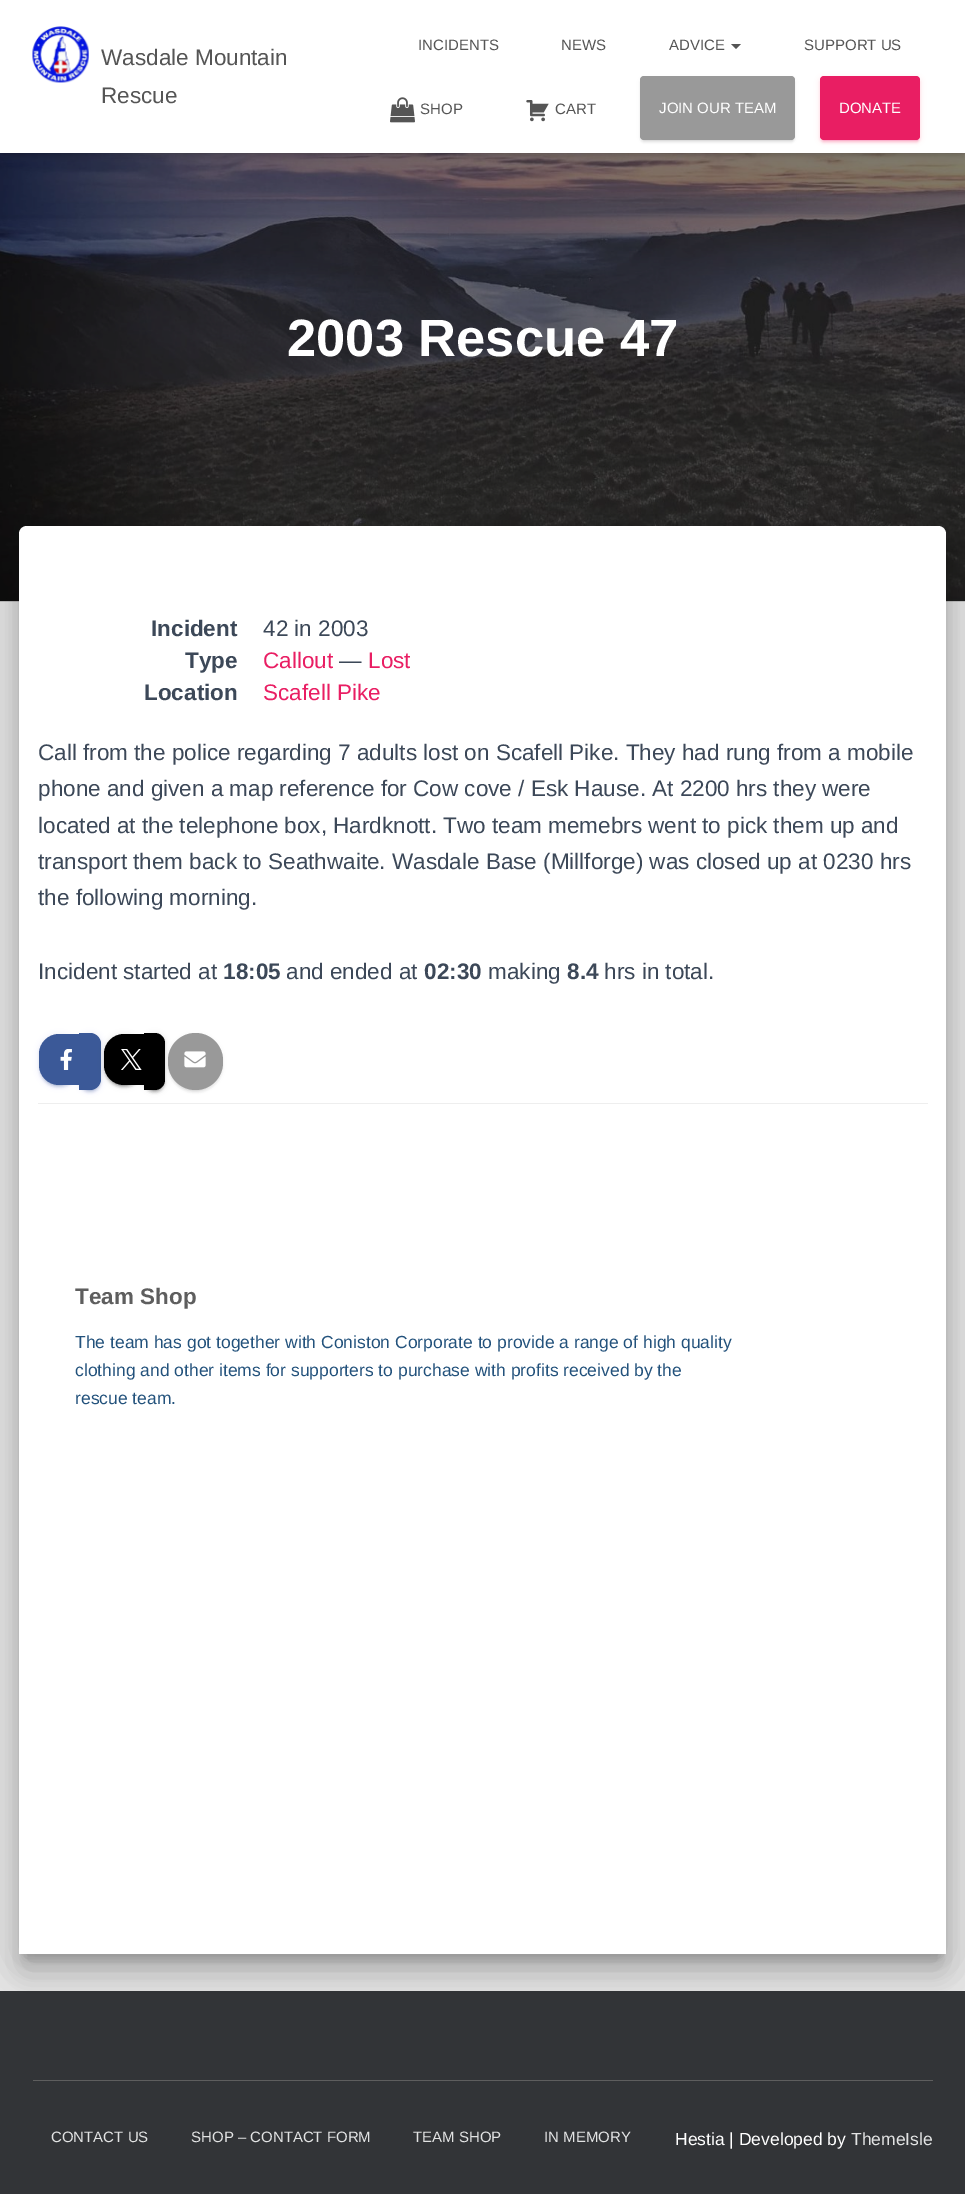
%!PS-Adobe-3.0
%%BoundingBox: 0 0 965 2194
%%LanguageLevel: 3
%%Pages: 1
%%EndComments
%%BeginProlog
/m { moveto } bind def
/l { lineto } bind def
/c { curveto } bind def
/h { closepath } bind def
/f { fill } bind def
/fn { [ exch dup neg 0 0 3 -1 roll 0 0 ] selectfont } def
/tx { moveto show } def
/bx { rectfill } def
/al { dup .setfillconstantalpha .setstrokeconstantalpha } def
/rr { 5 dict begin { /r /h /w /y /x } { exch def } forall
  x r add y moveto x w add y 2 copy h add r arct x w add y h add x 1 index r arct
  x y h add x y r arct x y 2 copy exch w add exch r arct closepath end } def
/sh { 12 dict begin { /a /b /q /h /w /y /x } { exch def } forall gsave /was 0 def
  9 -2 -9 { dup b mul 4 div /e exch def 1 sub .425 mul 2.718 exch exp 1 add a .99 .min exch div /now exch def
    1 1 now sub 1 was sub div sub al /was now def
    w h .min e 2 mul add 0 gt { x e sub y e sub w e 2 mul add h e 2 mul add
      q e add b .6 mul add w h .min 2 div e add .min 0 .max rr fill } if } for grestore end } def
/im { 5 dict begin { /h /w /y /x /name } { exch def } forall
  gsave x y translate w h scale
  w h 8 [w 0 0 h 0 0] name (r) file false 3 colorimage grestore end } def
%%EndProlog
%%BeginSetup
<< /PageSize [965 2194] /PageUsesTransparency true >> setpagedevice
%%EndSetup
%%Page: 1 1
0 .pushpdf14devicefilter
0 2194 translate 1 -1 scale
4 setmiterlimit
0.898 setgray
0 0 965 2194 bx
(image3.raw) 0 153 965 449 im
0 setgray
3 8 960 147 0 3 0.1 sh
0 1 965 153 0 6 0.12 sh
8 9 950 137 0 6 0.42 sh
1 setgray
0 0 965 153 bx
(image0.raw) 32 26 57 57 im
/LiberationSans-Regular 22.5 fn
0.333 setgray
(Wasdale Mountain) 101 65 tx
(Rescue) 101 103 tx
/LiberationSans-Regular 15 fn
(INCIDENTS) 418 50 tx
(NEWS) 561 50 tx
(ADVICE) 669 50 tx
731 44 m 741 44 l 736 49 l h f
(SUPPORT US) 804 50 tx
(image1.raw) 390 97 25 26 im
(SHOP) 420 114 tx
(image2.raw) 526 100 23 22 im
(CART) 555 114 tx
0.6 setgray
640 78 155 63 4 3 0.12 sh
643 83 150 58 1 0.5 0.2 sh
640 79 155 64 4 1 0.14 sh
640 76 155 64 4 rr f
1 setgray
(JOIN OUR TEAM) 659 113 tx
0.914 0.118 0.388 setrgbcolor
820 78 100 63 4 3 0.12 sh
823 83 95 58 1 0.5 0.2 sh
820 79 100 64 4 1 0.14 sh
820 76 100 64 4 rr f
1 setgray
(DONATE) 839 113 tx
/LiberationSans-Bold 52.5 fn
(2003 Rescue 47) 287 356 tx
0 setgray
25 543 915 1415 1 6 0.2 sh
0.196 0.204 0.216 setrgbcolor
0 1991 965 203 bx
0 setgray
13 528 940 1440 14 19 0.12 sh
16 544 933 1432 10 15 0.14 sh
1 setgray
27 526 m 938 526 l 942.5 526 946 529.5 946 534 c 946 1954 l 19 1954 l 19 534 l 19 529.5 22.5 526 27 526 c h f
/LiberationSans-Bold 22.5 fn
0.235 0.282 0.345 setrgbcolor
(Incident) 151 636 tx
/LiberationSans-Regular 22.5 fn
(42 in 2003) 263 636 tx
/LiberationSans-Bold 22.5 fn
(Type) 185 668 tx
/LiberationSans-Regular 22.5 fn
0.914 0.118 0.388 setrgbcolor
(Callout) 263 668 tx
0.235 0.282 0.345 setrgbcolor
(—) 339 668 tx
0.914 0.118 0.388 setrgbcolor
(Lost) 368 668 tx
/LiberationSans-Bold 22.5 fn
0.235 0.282 0.345 setrgbcolor
(Location) 144 700 tx
/LiberationSans-Regular 22.5 fn
0.914 0.118 0.388 setrgbcolor
(Scafell Pike) 263 700 tx
0.235 0.282 0.345 setrgbcolor
(Call from the police regarding 7 adults lost on Scafell Pike. They had rung from a mobile) 38 760 tx
(phone and given a map reference for Cow cove / Esk Hause. At 2200 hrs they were) 38 796 tx
(located at the telephone box, Hardknott. Two team memebrs went to pick them up and) 38 833 tx
(transport them back to Seathwaite. Wasdale Base \(Millforge\) was closed up at 0230 hrs) 38 869 tx
(the following morning.) 38 905 tx
(Incident started at) 38 979 tx
/LiberationSans-Bold 22.5 fn
(18:05) 223 979 tx
/LiberationSans-Regular 22.5 fn
(and ended at) 286 979 tx
/LiberationSans-Bold 22.5 fn
(02:30) 424 979 tx
/LiberationSans-Regular 22.5 fn
(making) 488 979 tx
/LiberationSans-Bold 22.5 fn
(8.4) 567 979 tx
/LiberationSans-Regular 22.5 fn
(hrs in total.) 604 979 tx
0.231 0.349 0.596 setrgbcolor
39 1035 40 51 20 3 0.12 sh
39 1036 40 52 20 1 0.14 sh
41 1040 35 46 17.5 0.5 0.2 sh
59 1034 m 79 1034 l 79 1085 l 59 1085 l 48 1085 39 1076 39 1065 c 39 1054 l 39 1043 48 1034 59 1034 c h f
79 1034 22 57 11 3 0.12 sh
79 1035 22 58 11 1 0.14 sh
81 1039 18 52 9 0.5 0.2 sh
79 1033 m 90 1033 l 96 1033 101 1038 101 1044 c 101 1079 l 101 1085 96 1090 90 1090 c 79 1090 l h f
0 setgray
104 1035 40 51 20 3 0.12 sh
104 1036 40 52 20 1 0.14 sh
106 1040 35 46 17.5 0.5 0.2 sh
124 1034 m 144 1034 l 144 1085 l 124 1085 l 113 1085 104 1076 104 1065 c 104 1054 l 104 1043 113 1034 124 1034 c h f
144 1034 21 57 10.5 3 0.12 sh
144 1035 21 58 10.5 1 0.14 sh
146 1039 17 52 8.5 0.5 0.2 sh
144 1033 m 154.5 1033 l 160.5 1033 165 1037.5 165 1043.5 c 165 1079.5 l 165 1085.5 160.5 1090 154.5 1090 c 144 1090 l h f
0.6 setgray
168 1034 55 57 27.5 3 0.12 sh
168 1035 55 58 27.5 1 0.14 sh
170 1039 50 52 25 0.5 0.2 sh
168 1033 55 57 27.5 rr f
(image4.raw) 60 1049 12 21 im
(image5.raw) 121 1049 21 21 im
(image6.raw) 184 1051 22 17 im
0.933 setgray
38 1103 890 1 bx
/LiberationSans-Bold 22.5 fn
0.369 setgray
(Team Shop) 75 1304 tx
/LiberationSans-Regular 17.5 fn
0.137 0.322 0.486 setrgbcolor
(The team has got together with Coniston Corporate to provide a range of high quality) 75 1348 tx
(clothing and other items for supporters to purchase with profits received by the) 75 1376 tx
(rescue team.) 75 1404 tx
0.369 setgray
33 2080 900 1 bx
/LiberationSans-Regular 15 fn
0.886 0.89 0.89 setrgbcolor
(CONTACT US) 51 2142 tx
(SHOP – CONTACT FORM) 191 2142 tx
(TEAM SHOP) 413 2142 tx
(IN MEMORY) 544 2142 tx
/LiberationSans-Regular 17.5 fn
1 setgray
(Hestia | Developed by) 675 2145 tx
0.886 0.89 0.89 setrgbcolor
(ThemeIsle) 851 2145 tx
.poppdf14devicefilter showpage
%%EOF
